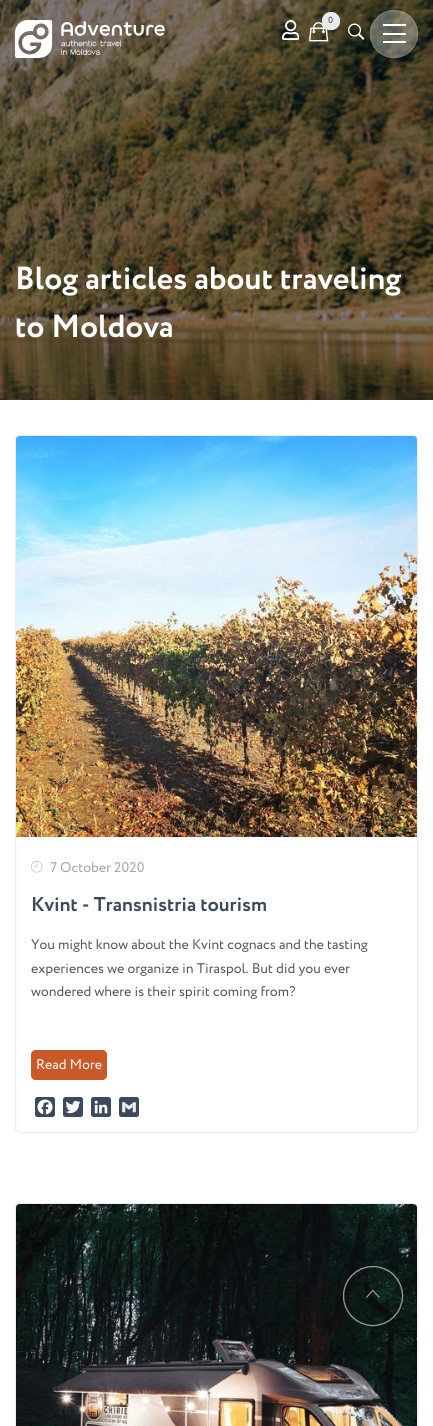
%!PS-Adobe-3.0
%%BoundingBox: 0 0 433 1426
%%LanguageLevel: 3
%%Pages: 1
%%EndComments
%%BeginProlog
/f { fill } bind def
/S { stroke } bind def
/bx { rectfill } def
/al { dup .setfillconstantalpha .setstrokeconstantalpha } def
/ci { newpath 0 360 arc closepath } def
/rr { 5 dict begin { /r /h /w /y /x } { exch def } forall
  x r add y moveto x w add y 2 copy h add r arct x w add y h add x 1 index r arct
  x y h add x y r arct x y 2 copy exch w add exch r arct closepath end } def
/im { 5 dict begin { /h /w /y /x /name } { exch def } forall
  gsave x y translate w h scale
  w h 8 [w 0 0 h 0 0] name (r) file false 3 colorimage grestore end } def
%%EndProlog
%%BeginSetup
<< /PageSize [433 1426] /PageUsesTransparency true >> setpagedevice
%%EndSetup
%%Page: 1 1
0 .pushpdf14devicefilter
0 1426 translate 1 -1 scale
4 setmiterlimit
1 setgray
0 0 433 1426 bx
(image0.raw) 0 0 433 400 im
(image1.raw) 18 266 383 30 im
(image2.raw) 16 314 156 24 im
(image3.raw) 15 20 150 38 im
(image4.raw) 282 20 17 20 im
(image5.raw) 309 22 20 20 im
0.918 setgray
331 21 9 ci f
(image6.raw) 328 16 5 8 im
(image7.raw) 348 23 17 17 im
0.3 al
1 setgray
394 34 24 ci f
0.1 al
394 34 23.5 ci S
1 al
383 24 23 2 bx
383 33 23 2 bx
383 41 23 2 bx
0.922 0.929 0.937 setrgbcolor
15.5 435.5 402 697 4.5 rr S
(image8.raw) 16 436 401 401 im
(image9.raw) 31 861 12 12 im
(image10.raw) 50 862 94 11 im
(image11.raw) 32 897 234 15 im
(image12.raw) 31 939 337 13 im
(image13.raw) 31 963 319 13 im
(image14.raw) 31 986 265 13 im
0.792 0.349 0.157 setrgbcolor
31 1050 76 30 5 rr f
(image15.raw) 37 1059 65 11 im
0.239 0.29 0.365 setrgbcolor
35 1097 20 20 3 rr f
(image16.raw) 37 1099 16 16 im
63 1097 20 20 3 rr f
(image17.raw) 65 1100 16 14 im
91 1097 20 20 3 rr f
(image18.raw) 94 1100 14 14 im
119 1097 20 20 3 rr f
(image19.raw) 122 1102 14 11 im
0.922 0.929 0.937 setrgbcolor
15.5 1203.5 402 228 4.5 rr S
(image20.raw) 16 1204 401 222 im
0.6 setgray
373 1296 29.5 ci S
(image21.raw) 366 1289 14 9 im
.poppdf14devicefilter showpage
%%EOF
